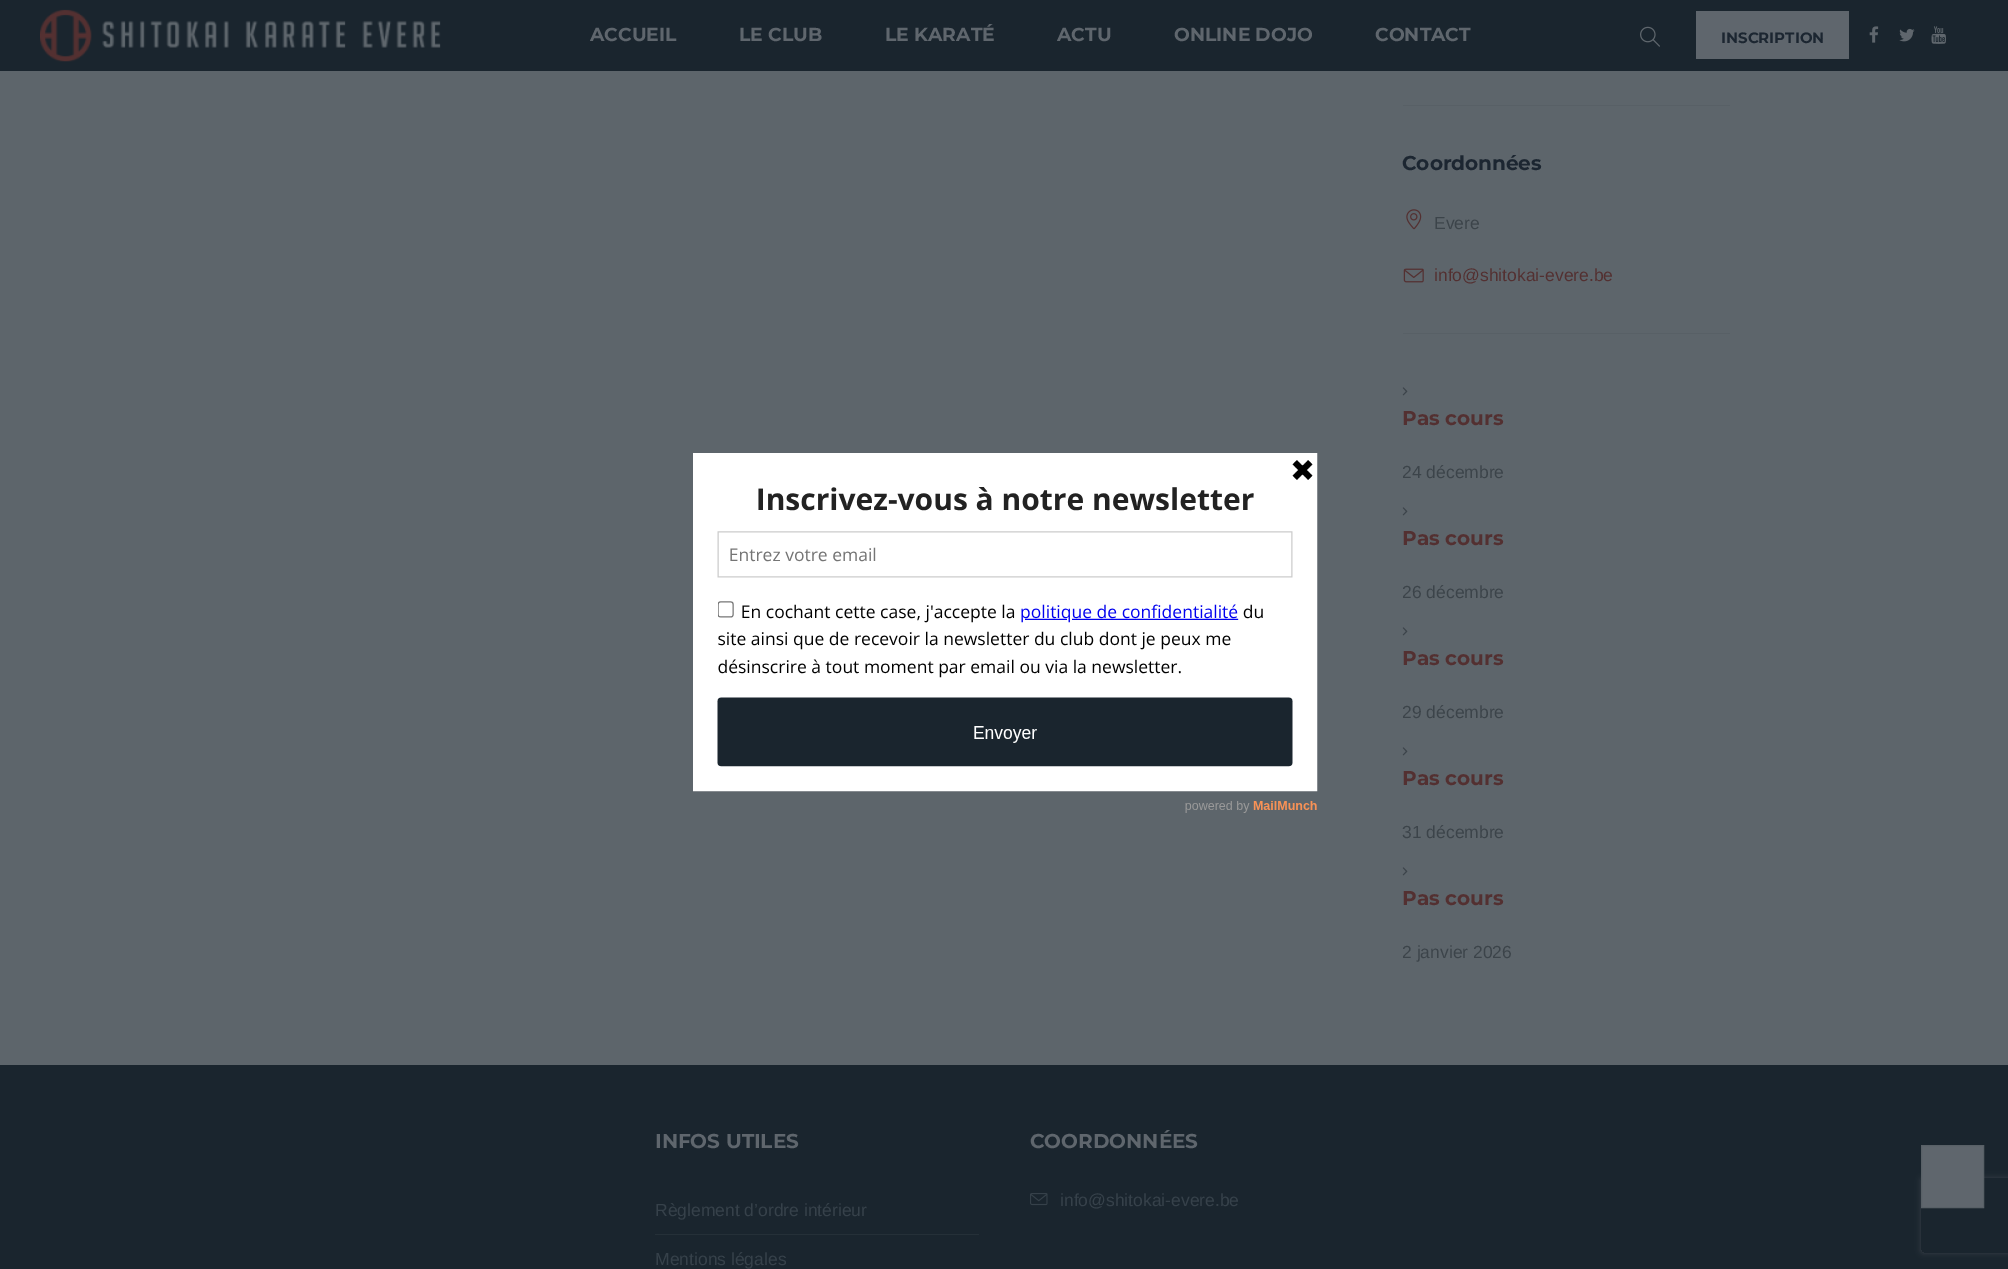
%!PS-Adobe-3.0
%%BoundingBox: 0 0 2008 1269
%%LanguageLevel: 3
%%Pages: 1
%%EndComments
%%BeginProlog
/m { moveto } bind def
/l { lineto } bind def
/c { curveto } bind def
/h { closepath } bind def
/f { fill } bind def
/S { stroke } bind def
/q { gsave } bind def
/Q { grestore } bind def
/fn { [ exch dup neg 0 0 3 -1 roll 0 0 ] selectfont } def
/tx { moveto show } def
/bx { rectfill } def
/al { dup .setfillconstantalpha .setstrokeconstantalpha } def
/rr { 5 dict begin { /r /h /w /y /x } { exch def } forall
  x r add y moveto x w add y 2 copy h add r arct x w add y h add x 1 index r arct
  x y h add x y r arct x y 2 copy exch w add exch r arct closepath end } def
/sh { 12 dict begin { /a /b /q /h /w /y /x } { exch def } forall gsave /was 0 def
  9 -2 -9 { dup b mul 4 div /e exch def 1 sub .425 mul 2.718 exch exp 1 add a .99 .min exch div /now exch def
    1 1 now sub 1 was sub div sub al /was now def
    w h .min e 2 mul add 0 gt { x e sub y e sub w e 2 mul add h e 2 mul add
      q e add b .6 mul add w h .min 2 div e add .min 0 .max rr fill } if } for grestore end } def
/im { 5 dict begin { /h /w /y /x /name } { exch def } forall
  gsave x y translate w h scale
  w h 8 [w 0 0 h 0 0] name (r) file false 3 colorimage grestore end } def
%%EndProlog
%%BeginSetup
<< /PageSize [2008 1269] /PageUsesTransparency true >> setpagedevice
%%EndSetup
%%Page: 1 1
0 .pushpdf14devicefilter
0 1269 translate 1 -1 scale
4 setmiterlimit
0.365 0.396 0.42 setrgbcolor
0 0 2008 1269 bx
0.102 0.145 0.18 setrgbcolor
0 0 2008 71 bx
(image0.raw) 40 9 401 53 im
/Montserrat-Bold 18.75 fn
0.373 0.4 0.427 setrgbcolor
(ACCUEIL) 590 41 tx
(LE CLUB) 739 41 tx
(LE KARATÉ) 885 41 tx
(ACTU) 1057 41 tx
(ONLINE DOJO) 1174 41 tx
(CONTACT) 1375 41 tx
(image1.raw) 1640 26 20 21 im
1696 11 153 48 bx
/Montserrat-Bold 15 fn
0.11 0.149 0.192 setrgbcolor
(INSCRIPTION) 1721 43 tx
(image2.raw) 1869 26 10 17 im
(image3.raw) 1899 28 16 14 im
(image4.raw) 1931 26 15 18 im
0.345 0.376 0.4 setrgbcolor
1403 105 327 1 bx
1403 333 327 1 bx
/Montserrat-Bold 20 fn
0.11 0.149 0.192 setrgbcolor
(Coordonnées) 1402 170 tx
(image5.raw) 1406 209 16 21 im
/LiberationSans-Regular 17.5 fn
0.235 0.267 0.29 setrgbcolor
(Evere) 1434 229 tx
(image6.raw) 1403 268 21 15 im
0.325 0.188 0.192 setrgbcolor
(info@shitokai-evere.be) 1434 281 tx
(image7.raw) 1402 387 6 9 im
/Montserrat-Bold 20 fn
(Pas cours) 1402 425 tx
/LiberationSans-Regular 17.5 fn
0.235 0.267 0.29 setrgbcolor
(24 décembre) 1402 478 tx
(image7.raw) 1402 507 6 9 im
/Montserrat-Bold 20 fn
0.325 0.188 0.192 setrgbcolor
(Pas cours) 1402 545 tx
/LiberationSans-Regular 17.5 fn
0.235 0.267 0.29 setrgbcolor
(26 décembre) 1402 598 tx
(image7.raw) 1402 627 6 9 im
/Montserrat-Bold 20 fn
0.325 0.188 0.192 setrgbcolor
(Pas cours) 1402 665 tx
/LiberationSans-Regular 17.5 fn
0.235 0.267 0.29 setrgbcolor
(29 décembre) 1402 718 tx
(image7.raw) 1402 747 6 9 im
/Montserrat-Bold 20 fn
0.325 0.188 0.192 setrgbcolor
(Pas cours) 1402 785 tx
/LiberationSans-Regular 17.5 fn
0.235 0.267 0.29 setrgbcolor
(31 décembre) 1402 838 tx
(image7.raw) 1402 867 6 9 im
/Montserrat-Bold 20 fn
0.325 0.188 0.192 setrgbcolor
(Pas cours) 1402 905 tx
/LiberationSans-Regular 17.5 fn
0.235 0.267 0.29 setrgbcolor
(2 janvier 2026) 1402 958 tx
0.102 0.145 0.18 setrgbcolor
0 1065 2008 204 bx
/Montserrat-Bold 20 fn
0.373 0.4 0.427 setrgbcolor
(INFOS UTILES) 655 1148 tx
/LiberationSans-Regular 17.5 fn
0.212 0.255 0.29 setrgbcolor
(Règlement d’ordre intérieur) 655 1216 tx
0.145 0.188 0.22 setrgbcolor
655 1234 324 1 bx
0.212 0.255 0.29 setrgbcolor
(Mentions légales) 655 1265 tx
/Montserrat-Bold 20 fn
0.373 0.4 0.427 setrgbcolor
(COORDONNÉES) 1030 1148 tx
(image8.raw) 1030 1193 18 13 im
/LiberationSans-Regular 17.5 fn
0.212 0.255 0.29 setrgbcolor
(info@shitokai-evere.be) 1060 1206 tx
q
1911 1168 m 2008 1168 l 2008 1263 l 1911 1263 l h 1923.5 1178 m 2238.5 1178 l 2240 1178 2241 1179 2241 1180.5 c 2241 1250.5 l 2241 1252 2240 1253 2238.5 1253 c 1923.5 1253 l 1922 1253 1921 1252 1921 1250.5 c 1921 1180.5 l 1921 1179 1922 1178 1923.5 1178 c h eoclip newpath
0.224 0.251 0.278 setrgbcolor
1921 1178 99 75 2.5 3 1 sh
Q
0.373 0.4 0.427 setrgbcolor
1921.5 1145.5 m 1983.5 1145.5 l 1983.5 1207.5 l 1921.5 1207.5 l h q f Q
0.345 0.376 0.4 setrgbcolor
S
(image9.raw) 693 453 625 360 im
.poppdf14devicefilter showpage
%%EOF
